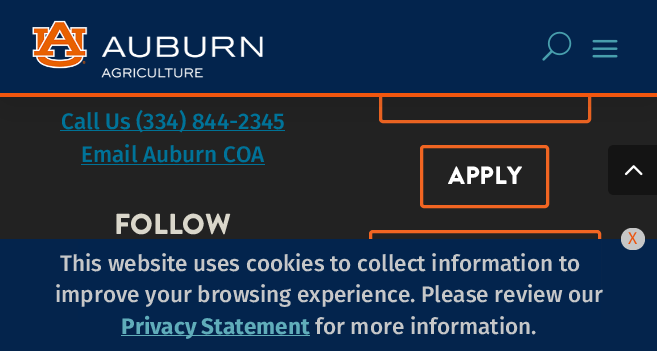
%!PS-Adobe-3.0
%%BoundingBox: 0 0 657 351
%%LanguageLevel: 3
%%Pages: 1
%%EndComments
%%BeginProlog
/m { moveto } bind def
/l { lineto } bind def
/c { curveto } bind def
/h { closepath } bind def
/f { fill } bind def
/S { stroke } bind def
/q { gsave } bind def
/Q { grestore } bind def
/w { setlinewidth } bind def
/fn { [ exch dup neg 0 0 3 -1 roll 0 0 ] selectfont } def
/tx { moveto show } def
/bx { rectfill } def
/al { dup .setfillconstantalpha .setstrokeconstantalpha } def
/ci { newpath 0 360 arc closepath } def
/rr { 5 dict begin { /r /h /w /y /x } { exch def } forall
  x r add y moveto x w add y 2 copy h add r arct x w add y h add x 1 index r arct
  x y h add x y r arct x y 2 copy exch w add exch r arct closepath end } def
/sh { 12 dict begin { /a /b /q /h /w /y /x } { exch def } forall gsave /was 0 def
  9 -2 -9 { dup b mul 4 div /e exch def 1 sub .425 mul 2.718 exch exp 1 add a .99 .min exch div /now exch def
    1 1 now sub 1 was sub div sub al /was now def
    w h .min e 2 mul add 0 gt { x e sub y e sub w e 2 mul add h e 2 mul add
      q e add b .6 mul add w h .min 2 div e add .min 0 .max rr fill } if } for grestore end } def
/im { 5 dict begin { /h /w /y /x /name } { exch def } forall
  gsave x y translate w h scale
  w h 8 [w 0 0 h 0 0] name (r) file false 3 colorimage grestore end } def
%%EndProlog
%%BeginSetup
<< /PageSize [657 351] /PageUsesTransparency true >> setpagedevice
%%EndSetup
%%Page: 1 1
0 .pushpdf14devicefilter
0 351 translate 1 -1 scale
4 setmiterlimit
0.133 setgray
0 0 657 351 bx
0 0.451 0.6 setrgbcolor
60 130 225 1 bx
81 164 184 1 bx
0.949 0.396 0.133 setrgbcolor
3 w
380.5 61.5 209 60 2.5 rr S
421.5 146.5 126 60 2.5 rr S
0 setgray
0 3 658 96 0 31 0.13 sh
0.012 0.141 0.302 setrgbcolor
0 0 657 93 bx
0.945 0.337 0.055 setrgbcolor
0 93 657 4 bx
(image0.raw) 32 20 231 58 im
(image1.raw) 542 31 30 30 im
(image2.raw) 592 39 26 19 im
/FiraSans-Medium 22.5 fn
0 0.451 0.6 setrgbcolor
(Call Us \(334\) 844-2345) 61 129 tx
(Email Auburn COA) 81 162 tx
/BrandonGrotesque-Black 28.75 fn
0.855 0.843 0.796 setrgbcolor
(FOLLOW) 114 234 tx
1 0 0 setrgbcolor
98 300 20 ci f
(image3.raw) 87 292 21 16 im
q 148 300 20 ci clip newpath
<< /ShadingType 2 /ColorSpace /DeviceRGB /Coords [148 280 148 320] /Extend [true true] /Function << /FunctionType 2 /Domain [0 1] /C0 [0.231 0.349 0.596] /C1 [0.471 0.91 0.894] /N 1 >> >> shfill Q
(image4.raw) 142 290 11 20 im
q 198 300 20 ci clip newpath
<< /ShadingType 2 /ColorSpace /DeviceRGB /Coords [198 280 198 320] /Extend [true true] /Function << /FunctionType 2 /Domain [0 1] /C0 [0.949 0.396 0.133] /C1 [0.973 0.894 0.596] /N 1 >> >> shfill Q
(image5.raw) 187 290 21 20 im
0 setgray
248 300 20 ci f
(image6.raw) 237 287 21 22 im
/BrandonGrotesque-Black 25 fn
1 setgray
(APPLY) 448 184 tx
0.949 0.396 0.133 setrgbcolor
370.5 231.5 229 60 2.5 rr S
0.97 al
0.012 0.141 0.302 setrgbcolor
0 239 657 112 bx
78 239 523 81 bx
1 al
0.78 setgray
621 228 24 22 11 rr f
/FiraSans-Regular 17 fn
0.922 0.329 0.059 setrgbcolor
(X) 628 244 tx
/FiraSans-Medium 22.5 fn
0.776 0.78 0.784 setrgbcolor
(This website uses cookies to collect information to) 60 271 tx
(improve your browsing experience. Please review our) 55 302 tx
0.38 0.678 0.722 setrgbcolor
121 335 189 1 bx
/FiraSans-Bold 22.5 fn
0.376 0.678 0.729 setrgbcolor
(Privacy Statement) 121 334 tx
/FiraSans-Medium 22.5 fn
0.776 0.78 0.784 setrgbcolor
(for more information.) 315 334 tx
0.078 setgray
614 145 m 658 145 l 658 195 l 614 195 l 610.5 195 608 192.5 608 189 c 608 151 l 608 147.5 610.5 145 614 145 c h f
(image7.raw) 624 165 19 11 im
.poppdf14devicefilter showpage
%%EOF
